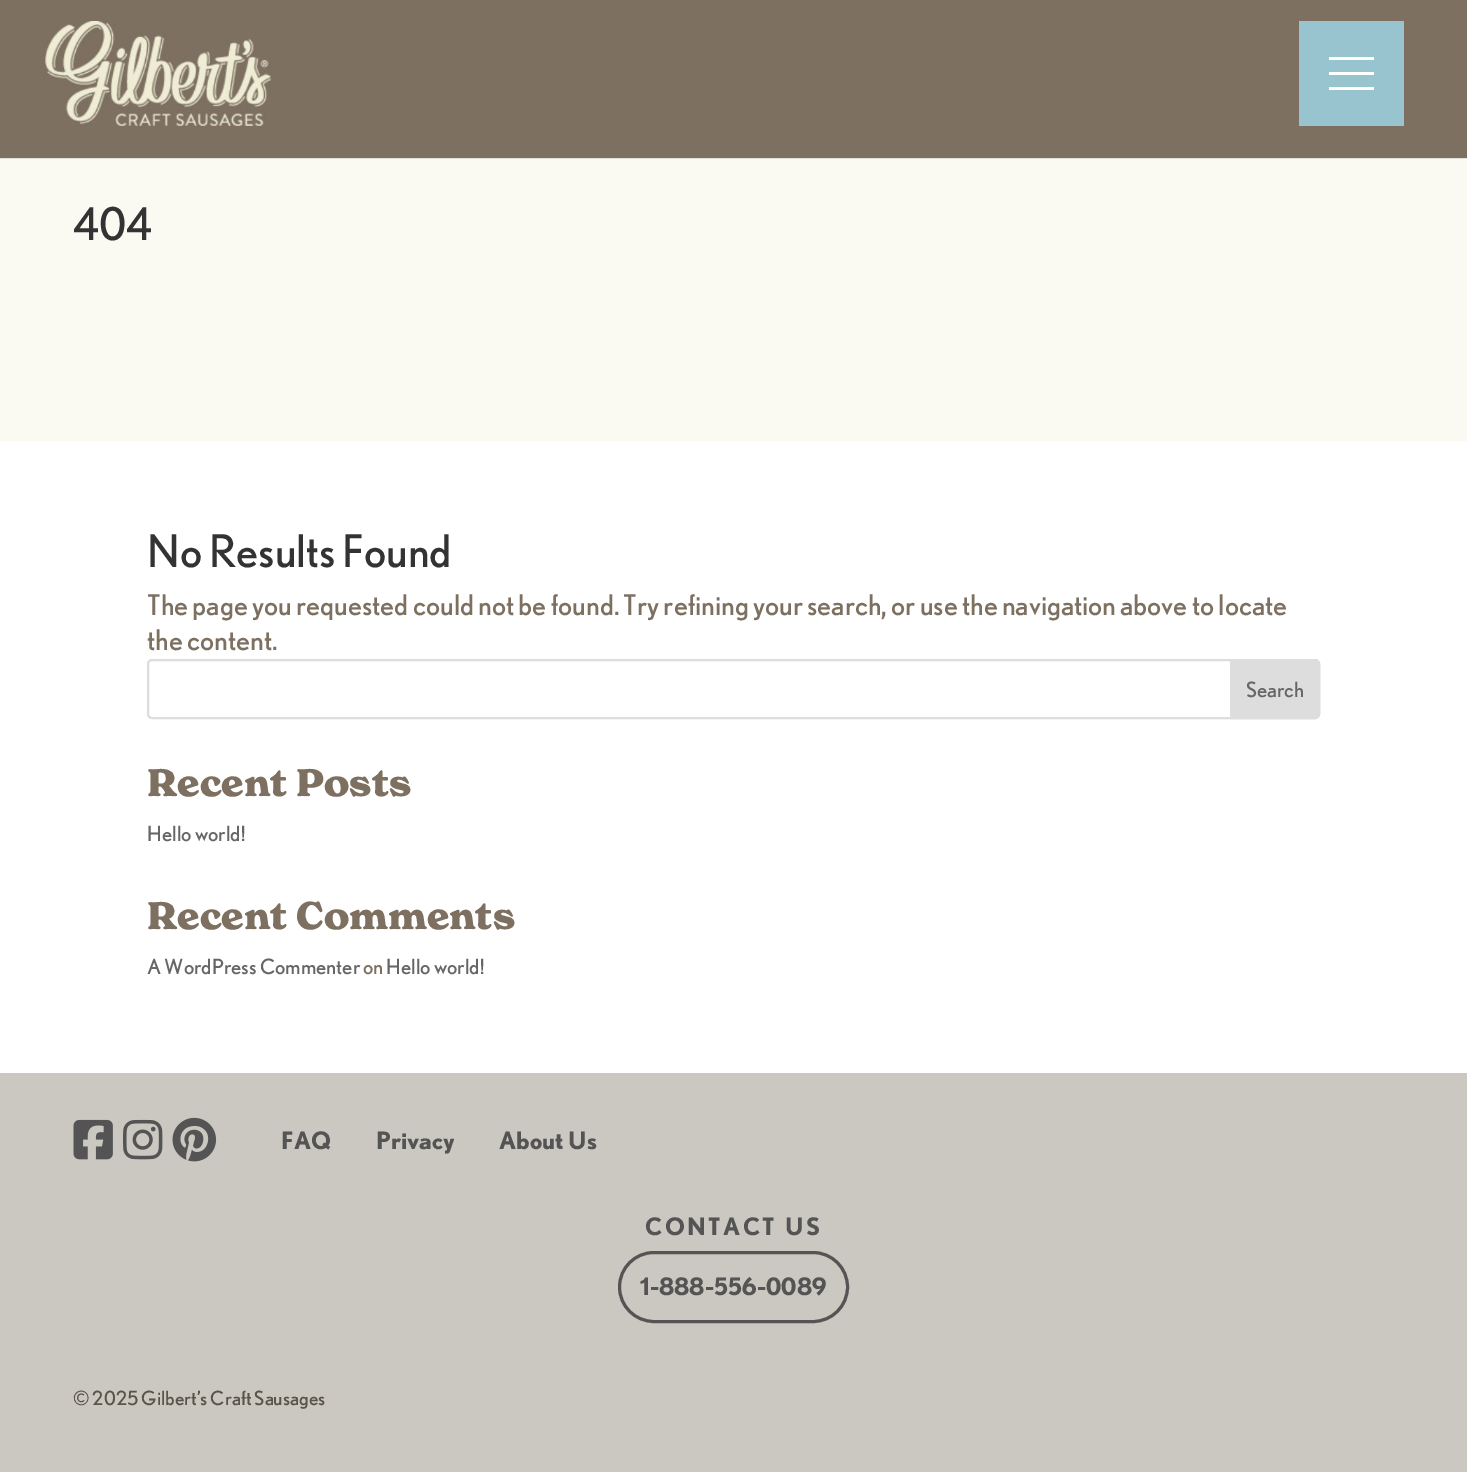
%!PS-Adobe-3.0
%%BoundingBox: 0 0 1467 1476
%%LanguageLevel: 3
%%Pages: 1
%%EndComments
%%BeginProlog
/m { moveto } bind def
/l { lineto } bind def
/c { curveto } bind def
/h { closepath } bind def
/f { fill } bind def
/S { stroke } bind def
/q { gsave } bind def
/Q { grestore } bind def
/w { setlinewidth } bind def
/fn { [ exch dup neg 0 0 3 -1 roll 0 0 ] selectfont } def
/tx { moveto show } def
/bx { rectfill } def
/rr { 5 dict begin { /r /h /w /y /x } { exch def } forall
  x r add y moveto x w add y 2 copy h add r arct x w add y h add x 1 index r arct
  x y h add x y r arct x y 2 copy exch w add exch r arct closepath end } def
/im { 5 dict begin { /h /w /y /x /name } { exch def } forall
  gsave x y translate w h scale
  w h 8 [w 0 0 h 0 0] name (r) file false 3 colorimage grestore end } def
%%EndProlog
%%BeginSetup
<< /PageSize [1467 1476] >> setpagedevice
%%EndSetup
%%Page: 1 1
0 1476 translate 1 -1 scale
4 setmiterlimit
1 setgray
0 0 1467 1476 bx
0.882 0.878 0.855 setrgbcolor
0 158 1467 1 bx
0.49 0.439 0.376 setrgbcolor
0 0 1467 158 bx
(image0.raw) 45 21 227 105 im
0.596 0.769 0.812 setrgbcolor
1299 21 105 105 bx
1 setgray
1329 57 45 3 bx
1329 72 45 3 bx
1329 87 45 3 bx
0.98 0.976 0.949 setrgbcolor
0 159 1467 282 bx
/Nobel-Regular 45 fn
0.2 setgray
(404) 73 240 tx
(No Results Found) 147 567 tx
/Nobel-Regular 28.5 fn
0.49 0.439 0.376 setrgbcolor
(The page you requested could not be found. Try refining your search, or use the navigation above to locate) 147 615 tx
(the content.) 147 650 tx
0.867 setgray
2 w
148 660 1171 58 4 rr S
1231 660 m 1315 660 l 1317 660 1319 662 1319 664 c 1319 714 l 1319 716 1317 718 1315 718 c 1231 718 l h q f Q
S
/Nobel-Regular 21 fn
0.4 setgray
(Search) 1246 697 tx
/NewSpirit-Bold 37.5 fn
0.49 0.439 0.376 setrgbcolor
(Recent Posts) 147 796 tx
/Nobel-Regular 21 fn
0.4 setgray
(Hello world!) 147 841 tx
/NewSpirit-Bold 37.5 fn
0.49 0.439 0.376 setrgbcolor
(Recent Comments) 147 929 tx
/Nobel-Regular 21 fn
0.4 setgray
(A WordPress Commenter) 147 974 tx
0.49 0.439 0.376 setrgbcolor
(on) 363 974 tx
0.4 setgray
(Hello world!) 386 974 tx
0.792 0.784 0.753 setrgbcolor
0 1073 1467 399 bx
(image1.raw) 73 1119 40 41 im
(image2.raw) 123 1119 40 41 im
(image3.raw) 172 1117 45 45 im
/Nobel-Bold 24 fn
0.329 setgray
(FAQ) 281 1149 tx
(Privacy) 376 1149 tx
(About Us) 499 1149 tx
/Nobel-Regular 19.5 fn
0.357 0.325 0.282 setrgbcolor
(© 2025 Gilbert’s Craft Sausages) 73 1405 tx
/Nobel-Bold 24 fn
0.329 setgray
645 1235 m 2.4 0 (CONTACT US) ashow
3 w
619.5 1252.5 228 69 34.5 rr S
(1-888-556-0089) 640 1295 tx
showpage
%%EOF
